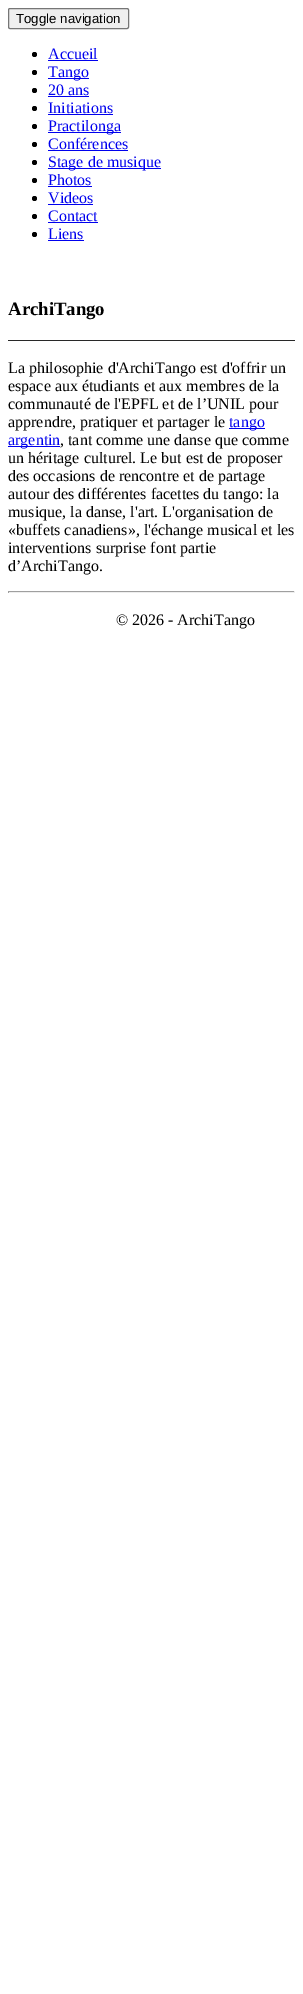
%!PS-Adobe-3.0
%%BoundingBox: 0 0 303 1994
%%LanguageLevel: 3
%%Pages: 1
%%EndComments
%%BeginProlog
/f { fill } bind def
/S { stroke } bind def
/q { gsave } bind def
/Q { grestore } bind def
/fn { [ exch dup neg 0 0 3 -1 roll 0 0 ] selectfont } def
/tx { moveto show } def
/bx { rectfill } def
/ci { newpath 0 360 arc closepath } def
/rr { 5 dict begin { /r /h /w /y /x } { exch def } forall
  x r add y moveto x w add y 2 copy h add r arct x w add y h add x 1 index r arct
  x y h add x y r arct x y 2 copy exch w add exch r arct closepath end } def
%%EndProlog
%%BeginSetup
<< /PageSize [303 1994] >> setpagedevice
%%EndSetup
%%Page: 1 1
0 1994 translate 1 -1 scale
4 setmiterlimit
1 setgray
0 0 303 1994 bx
0.937 setgray
8.5 8.5 120 20 1.5 rr q f Q
0.463 setgray
S
/LiberationSans-Regular 13.25 fn
0 setgray
(Toggle navigation) 16 23 tx
34.5 54.5 2.5 ci f
/LiberationSerif-Regular 16 fn
0 0 0.933 setrgbcolor
(Accueil) 48 59 tx
48 60 50 1 bx
0 setgray
34.5 72.5 2.5 ci f
0 0 0.933 setrgbcolor
48 78 41 1 bx
(Tango) 48 77 tx
0 setgray
34.5 90.5 2.5 ci f
0 0 0.933 setrgbcolor
(20 ans) 48 95 tx
48 96 41 1 bx
0 setgray
34.5 108.5 2.5 ci f
0 0 0.933 setrgbcolor
(Initiations) 48 113 tx
48 114 65 1 bx
0 setgray
34.5 126.5 2.5 ci f
0 0 0.933 setrgbcolor
48 132 73 1 bx
(Practilonga) 48 131 tx
0 setgray
34.5 144.5 2.5 ci f
0 0 0.933 setrgbcolor
(Conférences) 48 149 tx
48 150 80 1 bx
0 setgray
34.5 162.5 2.5 ci f
0 0 0.933 setrgbcolor
48 168 113 1 bx
(Stage de musique) 48 167 tx
0 setgray
34.5 180.5 2.5 ci f
0 0 0.933 setrgbcolor
(Photos) 48 185 tx
48 186 44 1 bx
0 setgray
34.5 198.5 2.5 ci f
0 0 0.933 setrgbcolor
(Videos) 48 203 tx
48 204 45 1 bx
0 setgray
34.5 216.5 2.5 ci f
0 0 0.933 setrgbcolor
(Contact) 48 221 tx
48 222 50 1 bx
0 setgray
34.5 234.5 2.5 ci f
0 0 0.933 setrgbcolor
(Liens) 48 239 tx
48 240 36 1 bx
/LiberationSerif-Bold 18.75 fn
0 setgray
(ArchiTango) 8 315 tx
0.157 setgray
8 340 287 1 bx
/LiberationSerif-Regular 16 fn
0 setgray
(La philosophie d'ArchiTango est d'offrir un) 8 373 tx
(espace aux étudiants et aux membres de la) 8 391 tx
(communauté de l'EPFL et de l’UNIL pour) 8 409 tx
(apprendre, pratiquer et partager le) 8 427 tx
0 0 0.933 setrgbcolor
229 428 36 1 bx
(tango) 229 427 tx
8 446 52 1 bx
(argentin) 8 445 tx
0 setgray
(, tant comme une danse que comme) 60 445 tx
(un héritage culturel. Le but est de proposer) 8 463 tx
(des occasions de rencontre et de partage) 8 481 tx
(autour des différentes facettes du tango: la) 8 499 tx
(musique, la danse, l'art. L'organisation de) 8 517 tx
(«buffets canadiens», l'échange musical et les) 8 535 tx
(interventions surprise font partie) 8 553 tx
(d’ArchiTango.) 8 571 tx
0.624 setgray
8 591 287 1 bx
0.933 setgray
294 591 1 2 bx
8 592 287 1 bx
0.624 setgray
8 591 1 2 bx
0 setgray
(© 2026 - ArchiTango) 116 625 tx
showpage
%%EOF
